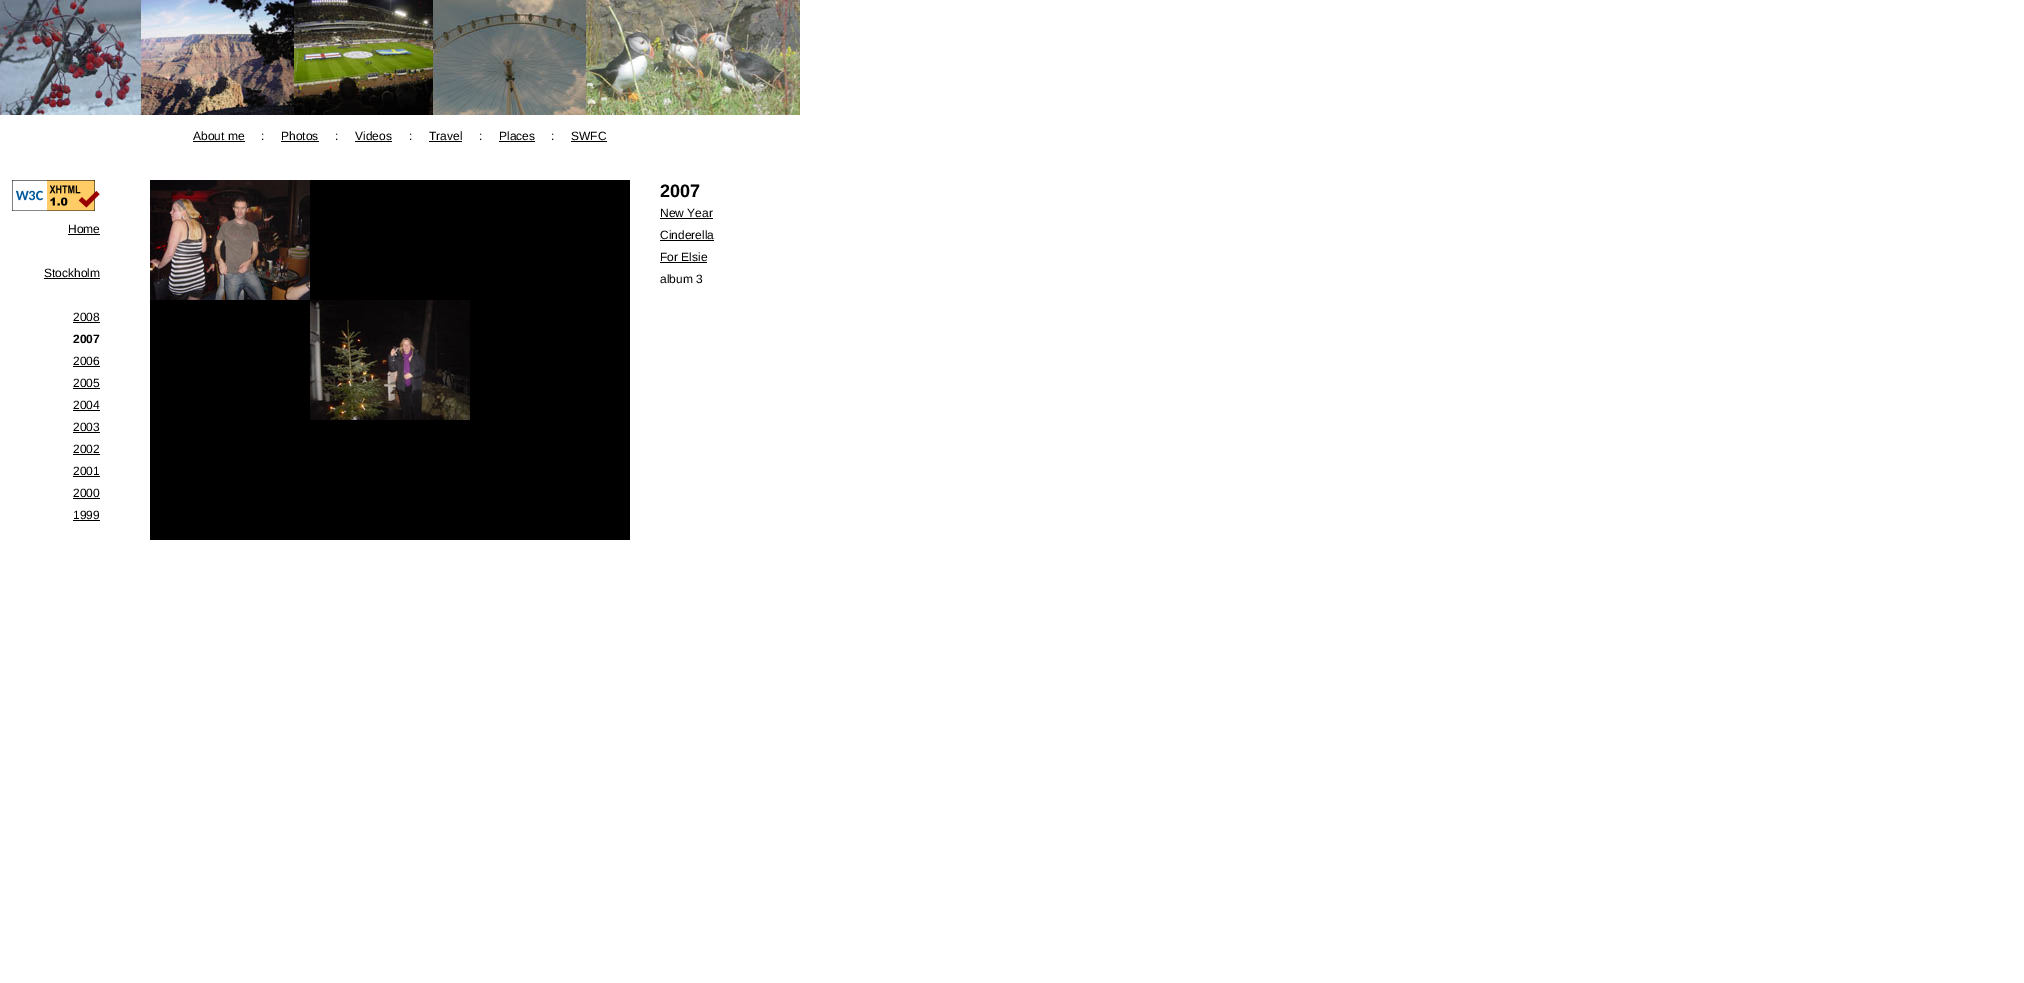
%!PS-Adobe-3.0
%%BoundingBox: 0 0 2024 983
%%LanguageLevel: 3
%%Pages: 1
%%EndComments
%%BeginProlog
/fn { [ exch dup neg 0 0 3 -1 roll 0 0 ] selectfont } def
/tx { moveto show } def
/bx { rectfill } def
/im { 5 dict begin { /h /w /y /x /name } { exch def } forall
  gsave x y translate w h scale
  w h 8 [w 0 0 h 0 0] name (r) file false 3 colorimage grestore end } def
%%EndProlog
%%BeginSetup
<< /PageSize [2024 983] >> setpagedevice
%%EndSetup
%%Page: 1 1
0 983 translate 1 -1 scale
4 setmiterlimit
1 setgray
0 0 2024 983 bx
(image0.raw) 0 0 800 115 im
/LiberationSans-Regular 12 fn
0 setgray
(About me) 193 140 tx
193 141 52 1 bx
(:) 261 140 tx
(Photos) 281 140 tx
281 141 38 1 bx
(:) 335 140 tx
(Videos) 355 140 tx
355 141 37 1 bx
(:) 409 140 tx
(Travel) 429 140 tx
429 141 33 1 bx
(:) 479 140 tx
(Places) 499 140 tx
499 141 36 1 bx
(:) 551 140 tx
(SWFC) 571 140 tx
571 141 36 1 bx
(image1.raw) 12 180 88 31 im
(Home) 68 233 tx
68 234 32 1 bx
(Stockholm) 44 277 tx
44 278 56 1 bx
(2008) 73 321 tx
73 322 27 1 bx
/LiberationSans-Bold 12 fn
(2007) 73 343 tx
/LiberationSans-Regular 12 fn
(2006) 73 365 tx
73 366 27 1 bx
(2005) 73 387 tx
73 388 27 1 bx
(2004) 73 409 tx
73 410 27 1 bx
(2003) 73 431 tx
73 432 27 1 bx
(2002) 73 453 tx
73 454 27 1 bx
(2001) 73 475 tx
73 476 27 1 bx
(2000) 73 497 tx
73 498 27 1 bx
(1999) 73 519 tx
73 520 27 1 bx
(image2.raw) 150 180 480 360 im
/LiberationSans-Bold 18 fn
(2007) 660 197 tx
/LiberationSans-Regular 12 fn
(New Year) 660 217 tx
660 218 53 1 bx
(Cinderella) 660 239 tx
660 240 54 1 bx
(For Elsie) 660 261 tx
660 262 47 1 bx
(album 3) 660 283 tx
showpage
%%EOF
